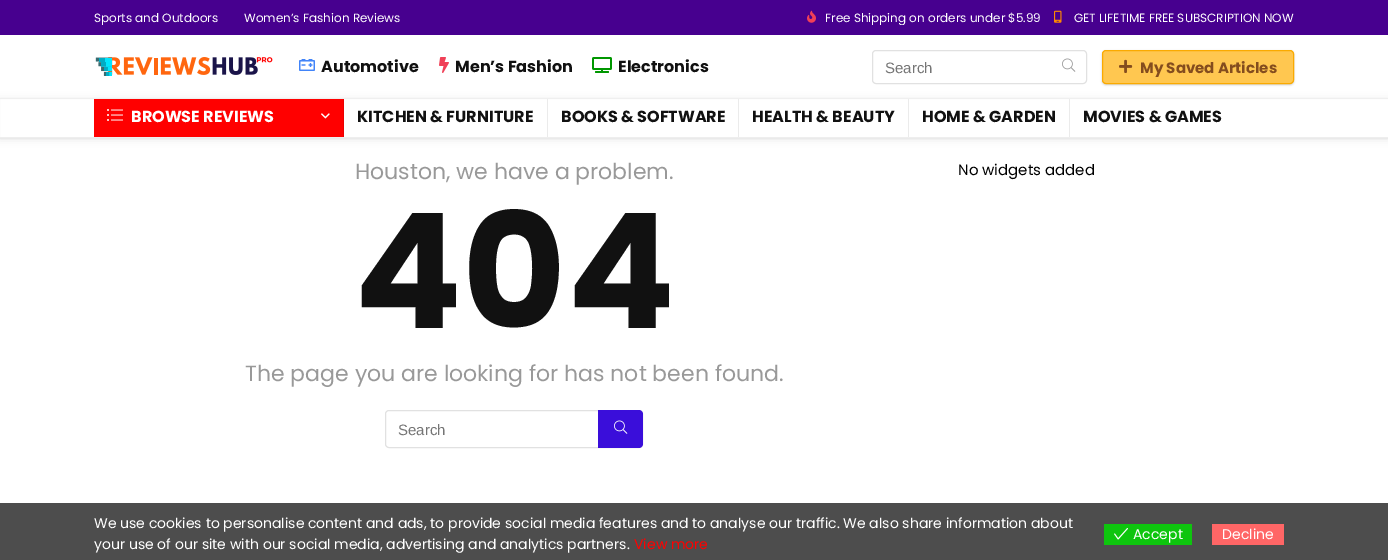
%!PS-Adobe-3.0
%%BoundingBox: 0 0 1388 560
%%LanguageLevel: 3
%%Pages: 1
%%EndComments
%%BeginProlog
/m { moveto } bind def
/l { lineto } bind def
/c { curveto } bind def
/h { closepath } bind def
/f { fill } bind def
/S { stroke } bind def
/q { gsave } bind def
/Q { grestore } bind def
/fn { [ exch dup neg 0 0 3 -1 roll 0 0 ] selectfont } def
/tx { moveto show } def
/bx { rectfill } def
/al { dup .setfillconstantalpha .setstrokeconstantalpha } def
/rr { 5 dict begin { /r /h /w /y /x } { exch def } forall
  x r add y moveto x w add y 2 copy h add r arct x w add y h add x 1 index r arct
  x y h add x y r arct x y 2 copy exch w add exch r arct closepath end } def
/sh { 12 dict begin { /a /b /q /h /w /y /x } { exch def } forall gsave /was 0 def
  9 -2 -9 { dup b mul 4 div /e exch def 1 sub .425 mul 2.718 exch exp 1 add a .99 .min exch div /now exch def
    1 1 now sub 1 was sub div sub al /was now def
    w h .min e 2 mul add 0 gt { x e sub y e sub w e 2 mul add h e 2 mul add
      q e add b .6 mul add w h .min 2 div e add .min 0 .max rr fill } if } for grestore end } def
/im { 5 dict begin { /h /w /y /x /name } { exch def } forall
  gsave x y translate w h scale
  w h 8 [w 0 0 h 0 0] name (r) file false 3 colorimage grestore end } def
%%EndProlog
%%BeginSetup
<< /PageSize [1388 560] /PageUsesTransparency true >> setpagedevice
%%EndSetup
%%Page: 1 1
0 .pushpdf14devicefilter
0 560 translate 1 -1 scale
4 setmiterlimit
1 setgray
0 0 1388 560 bx
0.278 0 0.561 setrgbcolor
0 0 1388 35 bx
/Poppins-Regular 12 fn
1 setgray
(Sports and Outdoors) 94 22 tx
(Women’s Fashion Reviews) 244 22 tx
(image0.raw) 807 10 9 13 im
q
802 10 492 15 rectclip
(Free Shipping on orders under $5.99) 825 22 tx
Q
(image1.raw) 1054 10 8 13 im
(GET LIFETIME FREE SUBSCRIPTION NOW) 1074 22 tx
(image2.raw) 95 57 178 19 im
(image3.raw) 299 59 16 12 im
/Poppins-Bold 16 fn
0.067 setgray
(Automotive) 321 72 tx
(image4.raw) 439 57 10 16 im
(Men’s Fashion) 455 72 tx
(image5.raw) 592 57 20 16 im
(Electronics) 618 72 tx
0.882 setgray
872.5 50.5 214 33 3.5 rr S
/LiberationSans-Regular 15 fn
0.459 setgray
(Search) 885 73 tx
(image6.raw) 1062 58 14 14 im
0 setgray
1102 51 192 34 4 1 0.2 sh
1 0.78 0.314 setrgbcolor
1102.5 50.5 191 33 3.5 rr q f Q
0.98 0.667 0 setrgbcolor
S
(image7.raw) 1119 59 14 14 im
/Poppins-Bold 15 fn
0.518 0.302 0.118 setrgbcolor
(My Saved Articles) 1140 73 tx
0.969 setgray
-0.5 98.5 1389 40 rectstroke
q
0 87 m 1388 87 l 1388 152 l 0 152 l h 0 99 m 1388 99 l 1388 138 l 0 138 l h eoclip newpath
0 setgray
0 100 1388 39 0 4 0.1 sh
Q
0.933 setgray
0 137 1388 1 bx
1 0 0 setrgbcolor
94 99 249 38 bx
0.922 0 0 setrgbcolor
343 99 1 38 bx
(image8.raw) 107 109 16 12 im
/Poppins-Bold 16 fn
1 setgray
(BROWSE REVIEWS) 131 122 tx
(image9.raw) 321 113 9 6 im
0.922 setgray
547 99 1 38 bx
0.067 setgray
(KITCHEN & FURNITURE) 357 122 tx
0.922 setgray
738 99 1 38 bx
0.067 setgray
(BOOKS & SOFTWARE) 561 122 tx
0.922 setgray
908 99 1 38 bx
0.067 setgray
(HEALTH & BEAUTY) 752 122 tx
0.922 setgray
1069 99 1 38 bx
0.067 setgray
(HOME & GARDEN) 922 122 tx
(MOVIES & GAMES) 1083 122 tx
/Poppins-Regular 22 fn
0.6 setgray
(Houston, we have a problem.) 355 179 tx
/Poppins-Bold 160 fn
0.067 setgray
(404) 354 328 tx
/Poppins-Regular 22 fn
0.6 setgray
(The page you are looking for has not been found.) 245 381 tx
0.882 setgray
385.5 410.5 257 37 3.5 rr S
/LiberationSans-Regular 15 fn
0.459 setgray
(Search) 398 435 tx
0.227 0.055 0.855 setrgbcolor
598 410 m 639 410 l 641 410 643 412 643 414 c 643 444 l 643 446 641 448 639 448 c 598 448 l h f
(image10.raw) 614 420 14 14 im
/Poppins-Regular 15 fn
0 setgray
(No widgets added) 958 175 tx
0.302 setgray
0 503 1388 57 bx
/Poppins-Regular 14 fn
1 setgray
(We use cookies to personalise content and ads, to provide social media features and to analyse our traffic. We also share information about) 94 528 tx
(your use of our site with our social media, advertising and analytics partners.) 94 549 tx
1 0 0 setrgbcolor
(View more) 634 549 tx
0.055 0.773 0.055 setrgbcolor
1104 524 88 21 bx
(image11.raw) 1114 528 14 12 im
1 setgray
(Accept) 1133 539 tx
1 0.4 0.4 setrgbcolor
1212 524 72 21 bx
1 setgray
(Decline) 1222 539 tx
.poppdf14devicefilter showpage
%%EOF
